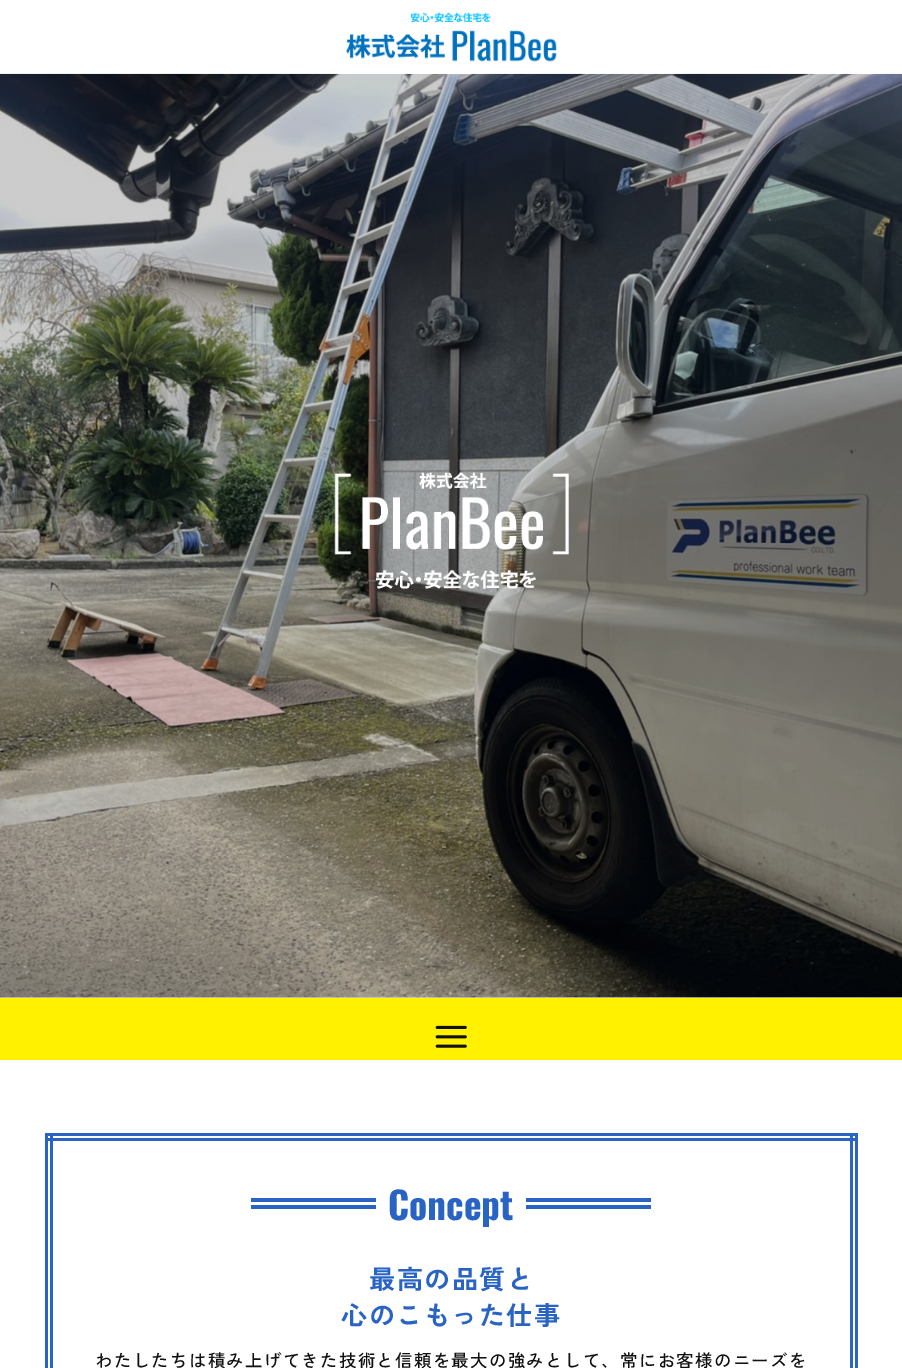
%!PS-Adobe-3.0
%%BoundingBox: 0 0 902 1368
%%LanguageLevel: 3
%%Pages: 1
%%EndComments
%%BeginProlog
/m { moveto } bind def
/fn { [ exch dup neg 0 0 3 -1 roll 0 0 ] selectfont } def
/tx { moveto show } def
/bx { rectfill } def
/im { 5 dict begin { /h /w /y /x /name } { exch def } forall
  gsave x y translate w h scale
  w h 8 [w 0 0 h 0 0] name (r) file false 3 colorimage grestore end } def
%%EndProlog
%%BeginSetup
<< /PageSize [902 1368] >> setpagedevice
%%EndSetup
%%Page: 1 1
0 1368 translate 1 -1 scale
4 setmiterlimit
1 setgray
0 0 902 1368 bx
0.8 setgray
0 997 902 1 bx
(image0.raw) 346 12 211 50 im
(image1.raw) 0 73 902 925 im
(image2.raw) 334 472 235 117 im
1 0.945 0 setrgbcolor
0 998 902 62 bx
(image3.raw) 435 1025 32 23 im
0.161 0.392 0.769 setrgbcolor
45 1133 813 3 bx
45 1138 813 3 bx
850 1133 3 235 bx
855 1133 3 235 bx
45 1133 3 235 bx
50 1133 3 235 bx
251 1198 125 4 bx
251 1205 125 4 bx
/Oswald-Bold 37.5 fn
(Concept) 388 1220 tx
526 1198 125 4 bx
526 1205 125 4 bx
/ZenKakuGothicNew-Bold 26.25 fn
369 1289 m 1.25 0 (最高の品質と) ashow
341 1325 m 1.25 0 (心のこもった仕事) ashow
/ZenKakuGothicNew-Medium 17.5 fn
0.067 setgray
95 1367 m 1.25 0 (わたしたちは積み上げてきた技術と信頼を最大の強みとして、常にお客様のニーズを) ashow
showpage
%%EOF
